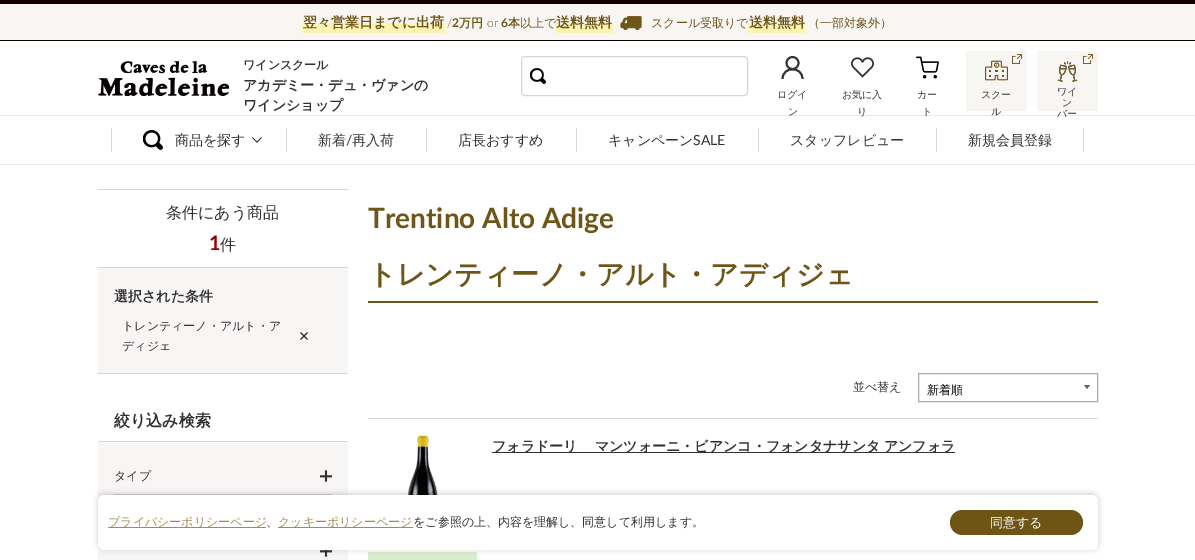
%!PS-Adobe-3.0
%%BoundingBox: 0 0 1195 560
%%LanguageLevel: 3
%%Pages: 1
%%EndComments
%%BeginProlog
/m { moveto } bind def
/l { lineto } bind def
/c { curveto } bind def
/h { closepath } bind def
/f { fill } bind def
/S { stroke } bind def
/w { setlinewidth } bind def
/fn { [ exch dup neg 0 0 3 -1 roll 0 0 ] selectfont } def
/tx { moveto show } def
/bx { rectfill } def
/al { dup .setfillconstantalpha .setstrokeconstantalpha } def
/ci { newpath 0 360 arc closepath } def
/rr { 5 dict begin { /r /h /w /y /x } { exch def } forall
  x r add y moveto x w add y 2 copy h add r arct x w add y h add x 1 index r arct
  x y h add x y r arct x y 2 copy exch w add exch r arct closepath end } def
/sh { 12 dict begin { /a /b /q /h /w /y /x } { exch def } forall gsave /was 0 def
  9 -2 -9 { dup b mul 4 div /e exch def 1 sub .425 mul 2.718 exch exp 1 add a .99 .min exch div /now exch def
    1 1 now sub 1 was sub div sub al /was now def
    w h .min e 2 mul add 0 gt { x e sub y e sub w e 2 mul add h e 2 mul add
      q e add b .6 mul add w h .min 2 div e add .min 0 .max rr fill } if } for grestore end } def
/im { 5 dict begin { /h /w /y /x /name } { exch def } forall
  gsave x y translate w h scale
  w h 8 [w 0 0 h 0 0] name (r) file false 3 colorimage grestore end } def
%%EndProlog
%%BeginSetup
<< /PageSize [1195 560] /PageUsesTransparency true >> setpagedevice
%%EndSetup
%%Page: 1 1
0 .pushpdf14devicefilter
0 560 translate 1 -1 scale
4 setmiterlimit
1 setgray
0 0 1195 560 bx
0.063 0.004 0.004 setrgbcolor
0 0 1195 4 bx
0.973 0.965 0.953 setrgbcolor
0 4 1195 36 bx
0.063 0.004 0.004 setrgbcolor
0 40 1195 1 bx
1 0.953 0.694 setrgbcolor
302 23 143 10 bx
/WenQuanYiZenHei-Bold 14 fn
0.431 0.333 0.094 setrgbcolor
(翌々営業日までに出荷) 303 27 tx
/Lato-Light 12 fn
(/) 447 27 tx
/Lato-Bold 12 fn
(2) 452 27 tx
/WenQuanYiZenHei-Bold 12 fn
(万円) 459 27 tx
/Lato-Light 12 fn
(or) 487 27 tx
/Lato-Bold 12 fn
(6) 501 27 tx
/WenQuanYiZenHei-Bold 12 fn
(本) 508 27 tx
/WenQuanYiZenHei-Medium 12 fn
(以上で) 520 27 tx
1 0.953 0.694 setrgbcolor
556 23 57 10 bx
/WenQuanYiZenHei-Bold 14 fn
0.431 0.333 0.094 setrgbcolor
(送料無料) 556 27 tx
(image0.raw) 620 16 22 14 im
/WenQuanYiZenHei-Medium 12 fn
(スクール受取りで) 651 27 tx
1 0.953 0.694 setrgbcolor
748 23 57 10 bx
/WenQuanYiZenHei-Bold 14 fn
0.431 0.333 0.094 setrgbcolor
(送料無料) 749 27 tx
/WenQuanYiZenHei-Medium 12 fn
(（一部対象外）) 808 27 tx
(image1.raw) 98 61 131 35 im
/WenQuanYiZenHei-Bold 12 fn
0.192 setgray
(ワインスクール) 243 69 tx
/WenQuanYiZenHei-Bold 14 fn
(アカデミー・デュ・ヴァンの) 243 90 tx
(ワインショップ) 243 110 tx
(image2.raw) 530 68 16 16 im
0.835 setgray
521.5 56.5 226 39 3.5 rr S
0.192 setgray
1.9 w
792.5 63 6 ci S
802.5 79 m 802.5 66 782.5 66 782.5 79 c S
/WenQuanYiZenHei-Medium 10 fn
(ログイ) 777 98 tx
0.918 setgray
0 115 1195 1 bx
0.192 setgray
(ン) 788 115 tx
(image3.raw) 851 57 23 21 im
(お気に入) 842 98 tx
(り) 857 115 tx
(image4.raw) 916 56 23 23 im
(カー) 917 98 tx
(ト) 922 115 tx
0.973 0.965 0.953 setrgbcolor
966 51 61 60 bx
(image5.raw) 985 60 23 21 im
(image6.raw) 1012 54 10 10 im
0.192 setgray
(スクー) 981 98 tx
(ル) 991 115 tx
0.973 0.965 0.953 setrgbcolor
1037 51 61 60 bx
(image7.raw) 1057 61 21 21 im
(image6.raw) 1083 54 10 10 im
0.192 setgray
(ワイ) 1057 95 tx
(ン) 1062 106 tx
(バー) 1057 117 tx
0.918 setgray
0 164 1195 1 bx
(image8.raw) 143 130 20 20 im
0.847 setgray
111 128 1 24 bx
(image9.raw) 252 137 10 6 im
/WenQuanYiZenHei-Medium 14 fn
0.192 setgray
(商品を探す) 175 145 tx
0.847 setgray
286 128 1 24 bx
0.192 setgray
(新着) 318 145 tx
/Lato-Regular 14 fn
(/) 346 145 tx
/WenQuanYiZenHei-Medium 14 fn
(再入荷) 352 145 tx
0.847 setgray
426 128 1 24 bx
0.192 setgray
(店長おすすめ) 458 145 tx
0.847 setgray
576 128 1 24 bx
0.192 setgray
(キャンペーン) 608 145 tx
/Lato-Regular 14 fn
(SALE) 693 145 tx
0.847 setgray
758 128 1 24 bx
/WenQuanYiZenHei-Medium 14 fn
0.192 setgray
(スタッフレビュー) 790 145 tx
0.847 setgray
936 128 1 24 bx
0.192 setgray
(新規会員登録) 968 145 tx
0.847 setgray
1083 128 1 24 bx
0.835 setgray
98 189 250 1 bx
98 373 250 1 bx
/WenQuanYiZenHei-Medium 16 fn
0.192 setgray
(条件にあう商品) 166 218 tx
/Lato-Bold 20 fn
0.584 0 0 setrgbcolor
(1) 209 250 tx
/WenQuanYiZenHei-Medium 16 fn
0.192 setgray
(件) 220 250 tx
0.973 0.961 0.961 setrgbcolor
98 268 250 105 bx
0.835 setgray
98 267 250 1 bx
/WenQuanYiZenHei-Bold 14 fn
0.192 setgray
(選択された条件) 114 301 tx
(image10.raw) 300 332 8 8 im
/WenQuanYiZenHei-Medium 12 fn
(トレンティーノ・アルト・ア) 122 330 tx
(ディジェ) 122 350 tx
/WenQuanYiZenHei-Bold 16 fn
(絞り込み検索) 114 426 tx
0.973 0.961 0.961 setrgbcolor
98 442 250 118 bx
0.835 setgray
98 441 250 1 bx
(image11.raw) 320 470 12 12 im
114 494 218 1 bx
/WenQuanYiZenHei-Medium 12 fn
0.192 setgray
(タイプ) 114 480 tx
(image12.raw) 320 550 12 7 im
0.431 0.333 0.094 setrgbcolor
368 301 730 2 bx
/Lato-Bold 28 fn
(Trentino Alto Adige) 368 228 tx
/WenQuanYiZenHei-Bold 28 fn
(トレンティーノ・アルト・アディジェ) 368 284 tx
/WenQuanYiZenHei-Medium 12 fn
0.192 setgray
(並べ替え) 853 391 tx
0.667 setgray
1 w
918.5 373.5 179 28 rectstroke
0 setgray
(新着順) 927 394 tx
0.4 setgray
1084 385 m 1090 385 l 1087 389 l h f
0.835 setgray
368 418 730 1 bx
(image13.raw) 407 435 31 60 im
0.855 0.929 0.812 setrgbcolor
368 552 109 8 bx
0.192 setgray
492 452 463 1 bx
/WenQuanYiZenHei-Bold 14 fn
492 451 m -1 0 32 (フォラドーリ 　マンツォーニ・ビアンコ・フォンタナサンタ アンフォラ) widthshow
0 setgray
98 494 1000 55 6 3 0.2 sh
1 setgray
98 495 1000 55 6 rr f
0.651 0.549 0.294 setrgbcolor
108 527 158 1 bx
/WenQuanYiZenHei-Medium 12 fn
(プライバシーポリシーページ) 108 526 tx
0.192 setgray
(、) 266 526 tx
0.651 0.549 0.294 setrgbcolor
278 527 135 1 bx
(クッキーポリシーページ) 278 526 tx
0.192 setgray
(をご参照の上、内容を理解し、同意して利用します。) 413 526 tx
0.431 0.333 0.086 setrgbcolor
950 510 133 25 12.5 rr f
/WenQuanYiZenHei-Medium 13 fn
1 setgray
(同意する) 990 527 tx
.poppdf14devicefilter showpage
%%EOF
